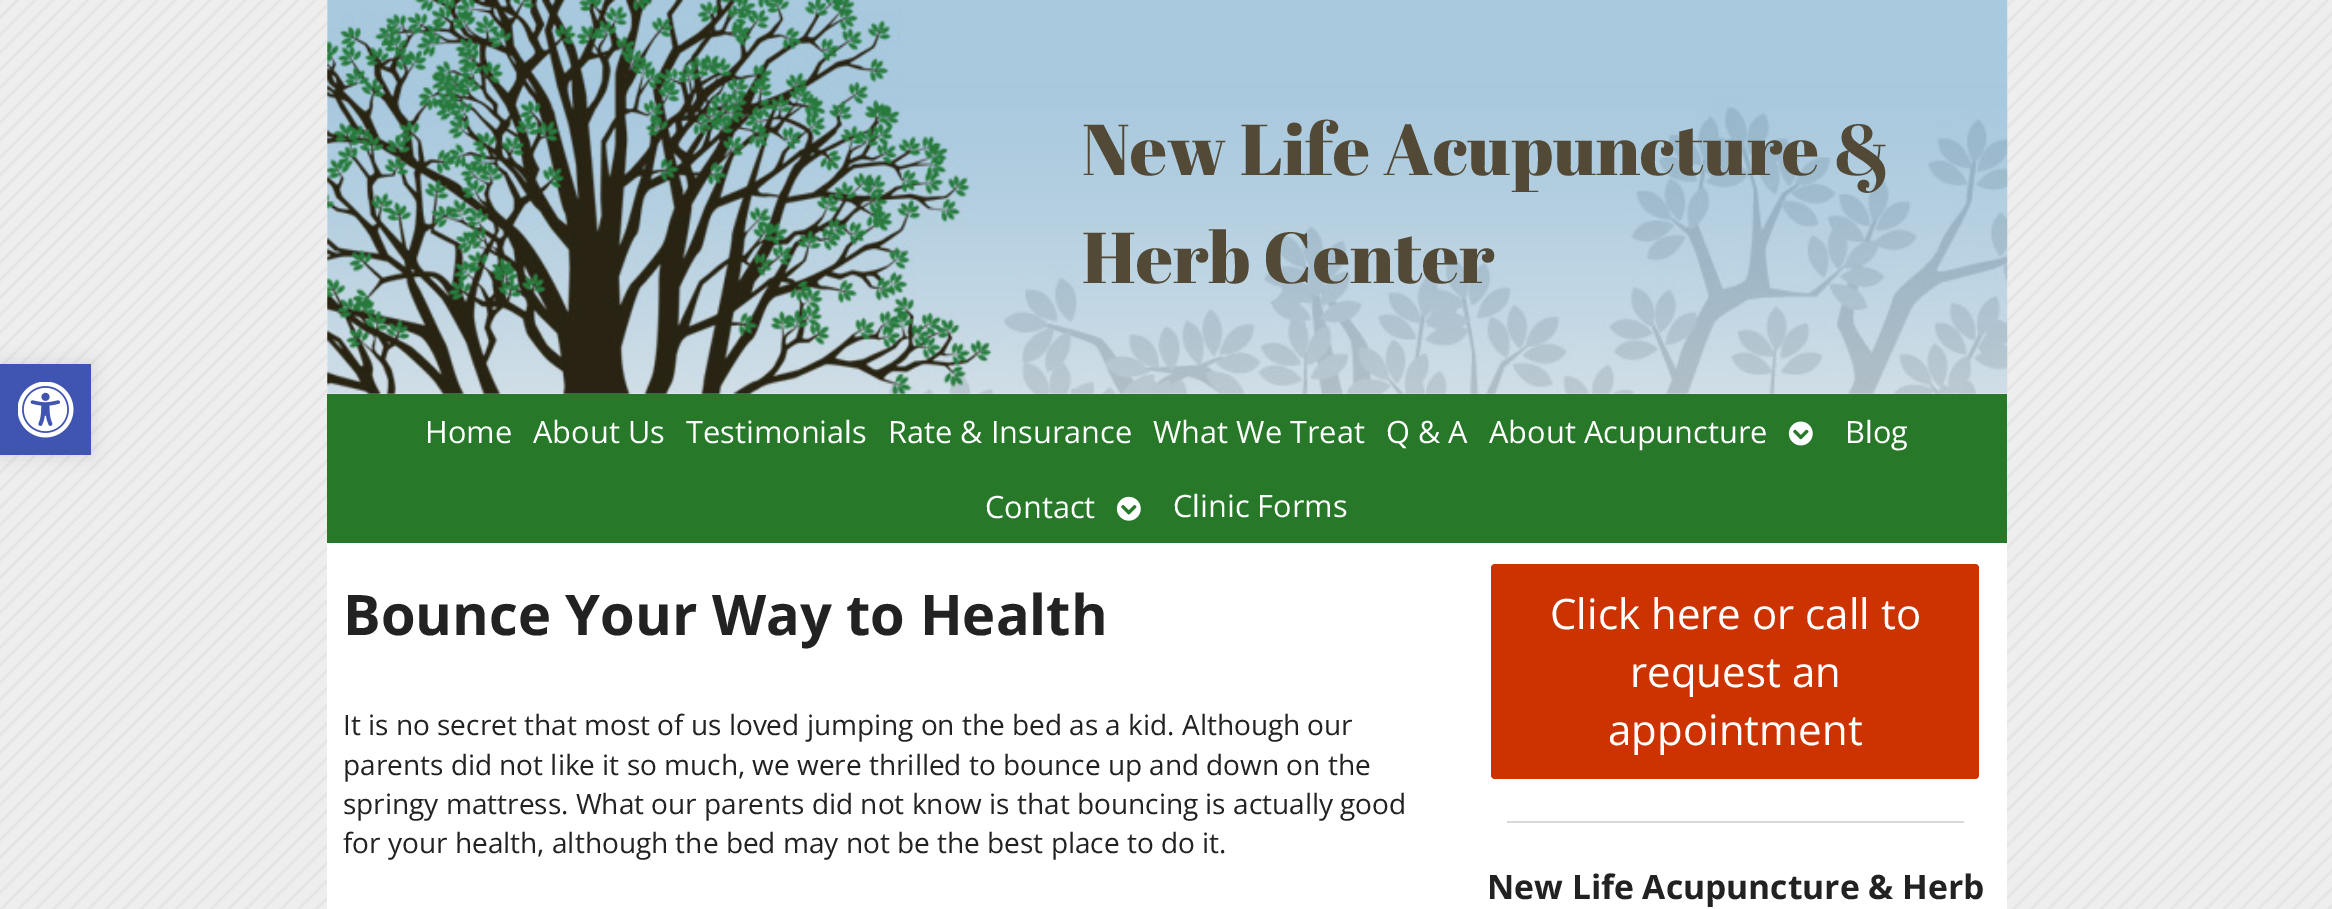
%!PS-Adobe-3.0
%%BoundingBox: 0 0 2332 909
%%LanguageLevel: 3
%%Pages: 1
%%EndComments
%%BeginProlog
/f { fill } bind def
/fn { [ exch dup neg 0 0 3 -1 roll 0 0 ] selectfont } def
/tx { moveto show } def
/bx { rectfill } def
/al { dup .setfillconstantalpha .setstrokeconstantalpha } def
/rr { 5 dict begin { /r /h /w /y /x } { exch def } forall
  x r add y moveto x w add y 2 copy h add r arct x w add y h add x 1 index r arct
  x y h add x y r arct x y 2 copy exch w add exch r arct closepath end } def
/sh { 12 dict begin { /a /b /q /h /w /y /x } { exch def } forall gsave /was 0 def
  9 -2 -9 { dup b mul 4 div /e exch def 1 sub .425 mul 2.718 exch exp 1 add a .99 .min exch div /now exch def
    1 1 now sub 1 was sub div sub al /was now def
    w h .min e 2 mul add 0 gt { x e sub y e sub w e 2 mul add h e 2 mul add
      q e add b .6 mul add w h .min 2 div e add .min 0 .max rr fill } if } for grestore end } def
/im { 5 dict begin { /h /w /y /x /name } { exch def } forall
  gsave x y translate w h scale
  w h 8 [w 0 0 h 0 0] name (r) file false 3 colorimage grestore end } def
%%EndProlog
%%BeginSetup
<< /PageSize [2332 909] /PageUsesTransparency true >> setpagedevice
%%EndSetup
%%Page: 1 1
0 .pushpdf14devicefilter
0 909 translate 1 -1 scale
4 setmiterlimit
0.933 setgray
0 0 2332 909 bx
(image0.raw) 0 0 2332 909 im
0 setgray
0 364 91 91 0 9 0.1 sh
0.251 0.329 0.698 setrgbcolor
0 364 91 91 bx
(image1.raw) 18 382 56 56 im
1 setgray
327 0 1680 909 bx
(image2.raw) 327 0 1681 394 im
/AbrilFatface-Regular 71.75 fn
0.322 0.286 0.212 setrgbcolor
(New Life Acupuncture &) 1082 175 tx
(Herb Center) 1082 283 tx
0.153 0.475 0.161 setrgbcolor
327 394 1680 149 bx
/OpenSans-Regular 30.75 fn
1 setgray
(Home) 425 443 tx
(About Us) 533 443 tx
(Testimonials) 686 443 tx
(Rate & Insurance) 888 443 tx
(What We Treat) 1153 443 tx
(Q & A) 1386 443 tx
(About Acupuncture) 1489 443 tx
(image3.raw) 1788 421 25 25 im
(Blog) 1845 443 tx
(Contact) 985 518 tx
(image4.raw) 1116 496 25 25 im
(Clinic Forms) 1173 517 tx
/OpenSans-Bold 56 fn
0.133 setgray
(Bounce Your Way to Health) 343 635 tx
/OpenSans-Regular 28 fn
(It is no secret that most of us loved jumping on the bed as a kid. Although our) 343 735 tx
(parents did not like it so much, we were thrilled to bounce up and down on the) 343 775 tx
(springy mattress. What our parents did not know is that bouncing is actually good) 343 814 tx
(for your health, although the bed may not be the best place to do it.) 343 853 tx
0.8 0.2 0 setrgbcolor
1491 564 488 215 4 rr f
/OpenSans-Regular 42 fn
1 setgray
(Click here or call to) 1550 629 tx
(request an) 1630 687 tx
(appointment) 1608 745 tx
0.851 setgray
1507 821 457 2 bx
/OpenSans-Bold 33.6 fn
0.133 setgray
(New Life Acupuncture & Herb) 1487 899 tx
.poppdf14devicefilter showpage
%%EOF
